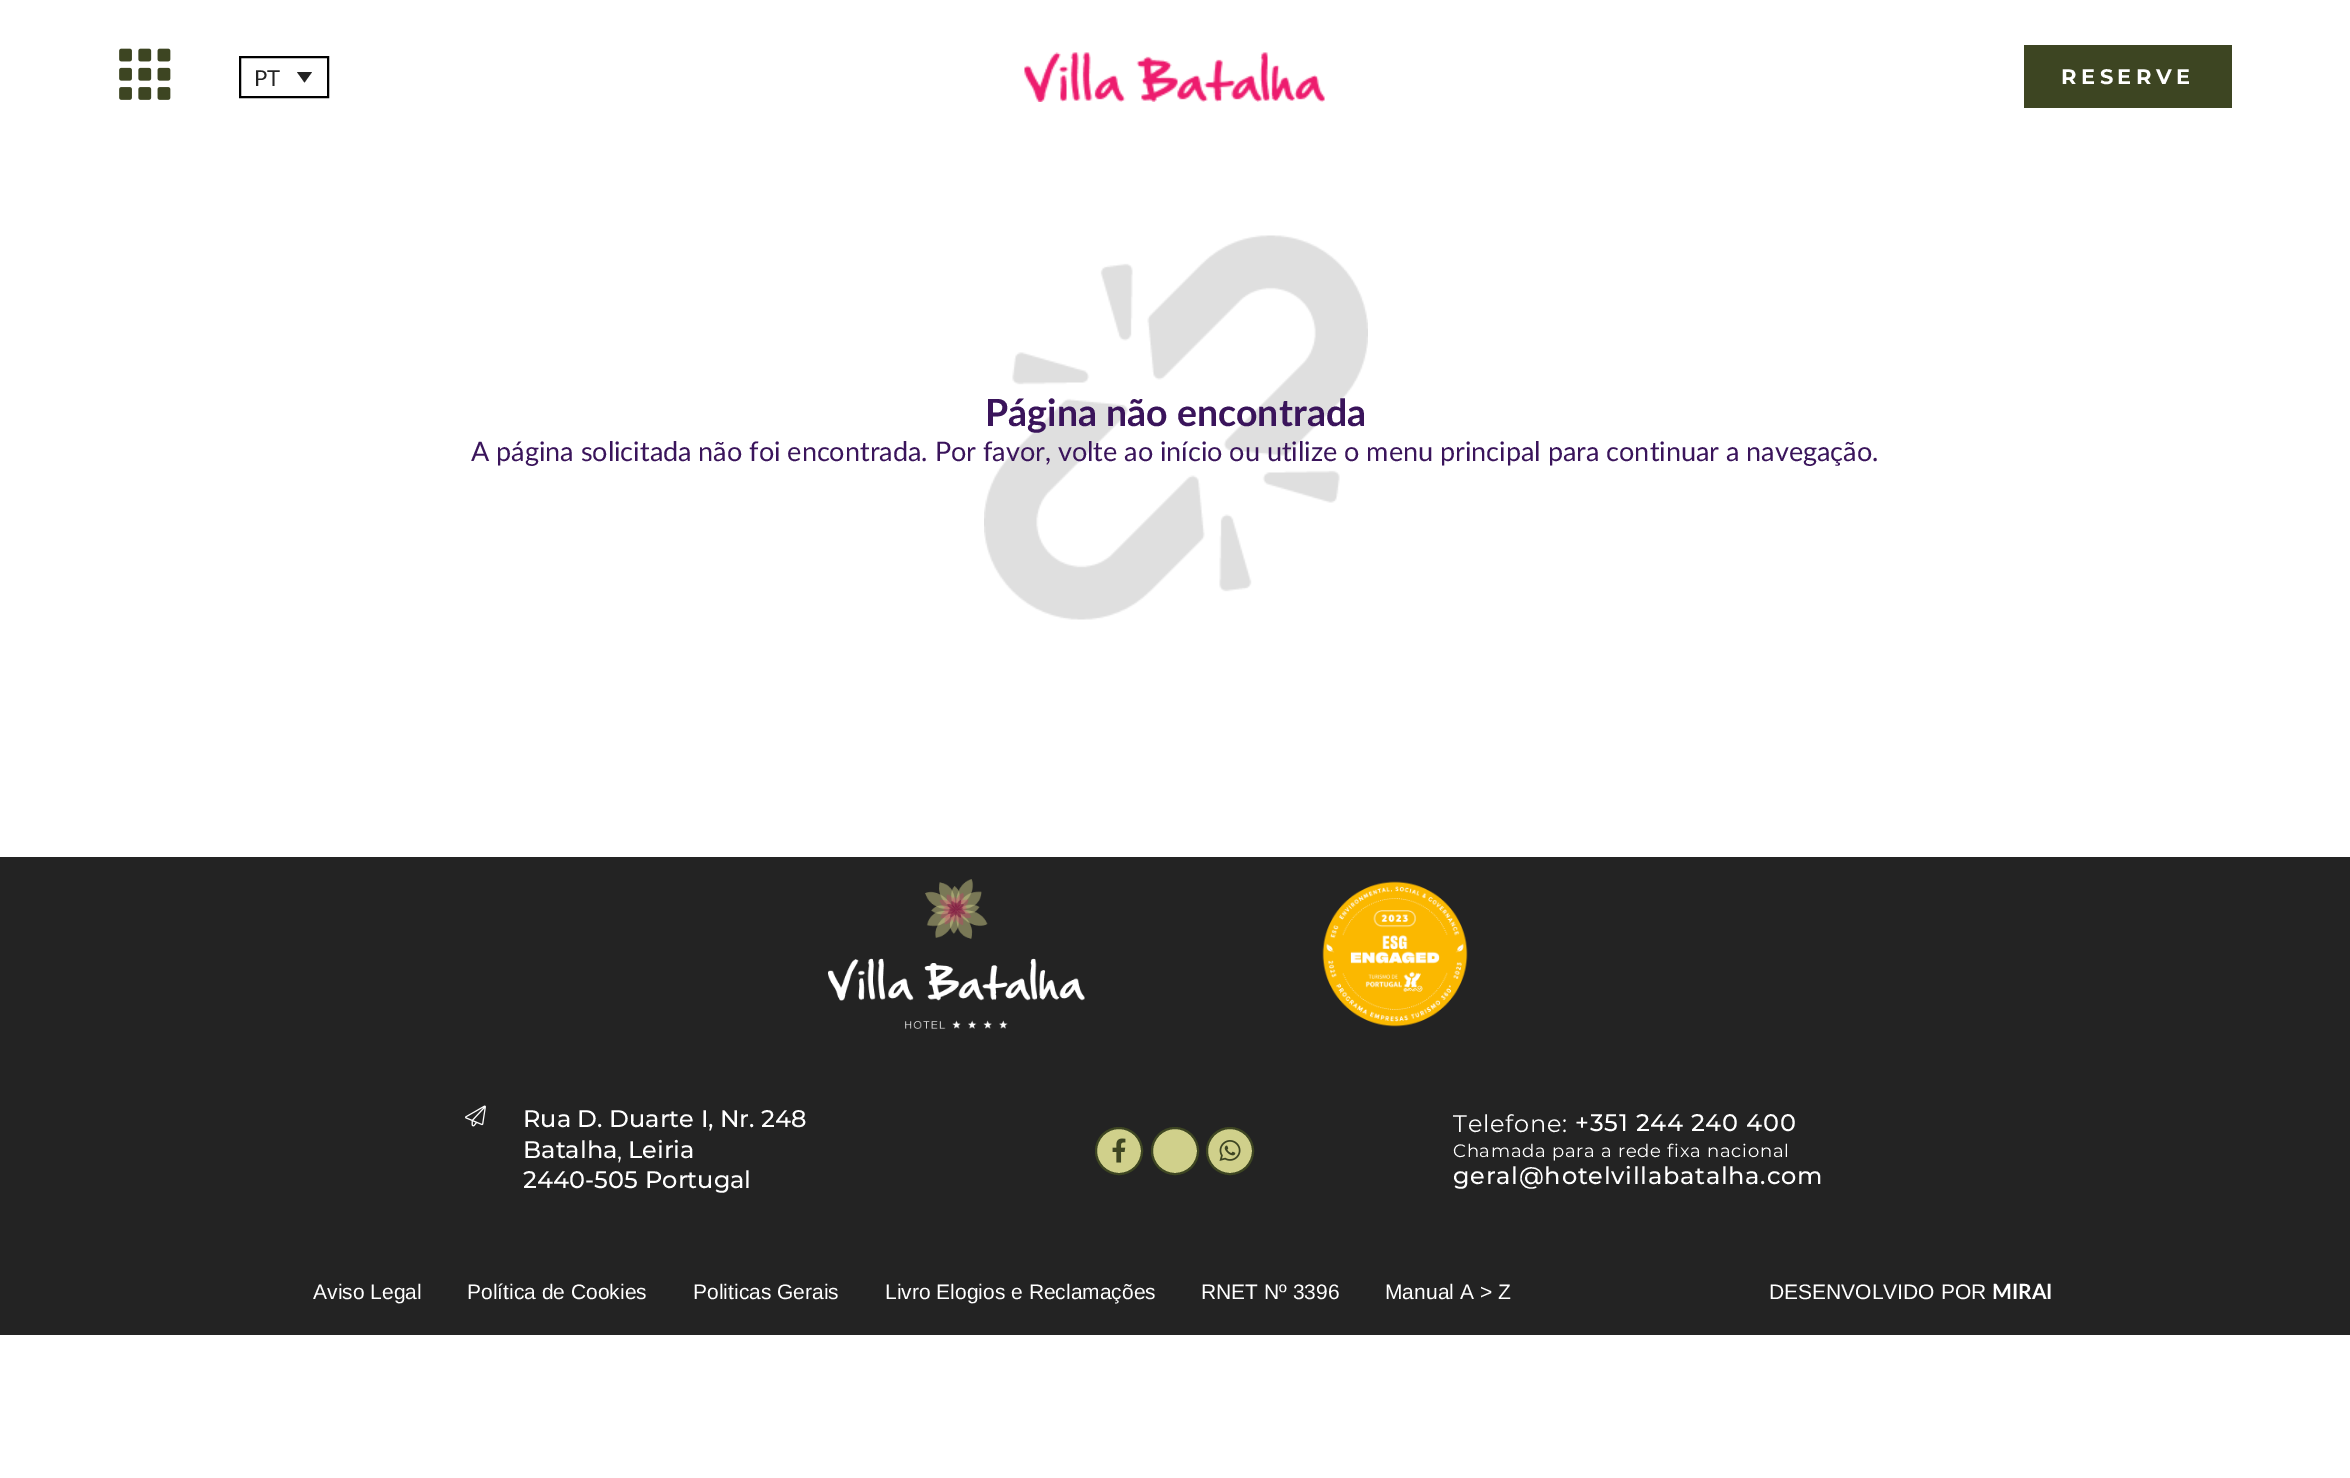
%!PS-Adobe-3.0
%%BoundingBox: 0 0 2350 1478
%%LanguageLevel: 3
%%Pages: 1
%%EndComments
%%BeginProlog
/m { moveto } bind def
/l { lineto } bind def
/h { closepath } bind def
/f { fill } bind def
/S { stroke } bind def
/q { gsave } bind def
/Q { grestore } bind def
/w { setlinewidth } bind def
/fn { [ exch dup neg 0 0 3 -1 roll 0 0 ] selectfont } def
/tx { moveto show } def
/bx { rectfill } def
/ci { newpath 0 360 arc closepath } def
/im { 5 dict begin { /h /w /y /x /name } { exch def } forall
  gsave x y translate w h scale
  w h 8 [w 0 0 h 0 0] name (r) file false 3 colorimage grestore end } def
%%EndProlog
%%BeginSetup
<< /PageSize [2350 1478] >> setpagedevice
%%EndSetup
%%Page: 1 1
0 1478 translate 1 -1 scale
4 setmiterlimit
1 setgray
0 0 2350 1478 bx
(image0.raw) 119 48 52 52 im
0 setgray
2 w
240 57 88 40 rectstroke
/Lato-Regular 22 fn
0.137 setgray
(PT) 254 86 tx
297 72 m 312 72 l 304.5 82.5 l h f
(image1.raw) 1024 52 301 50 im
0.239 0.271 0.133 setrgbcolor
2024 45 208 63 bx
/Montserrat-Bold 21 fn
1 setgray
2061 84 m 4.5 0 (RESERVE) ashow
(image2.raw) 984 235 384 385 im
/Lato-Bold 37.5 fn
0.227 0.078 0.357 setrgbcolor
(Página não encontrada) 985 426 tx
/Lato-Regular 27 fn
(A página solicitada não foi encontrada. Por favor, volte ao início ou utilize o menu principal para continuar a navegação.) 471 461 tx
0.137 setgray
0 857 2350 478 bx
(image3.raw) 828 879 257 150 im
(image4.raw) 1322 881 146 146 im
(image5.raw) 465 1105 21 22 im
/Montserrat-Medium 24 fn
1 setgray
(Rua D. Duarte I, Nr. 248) 523 1127 tx
(Batalha) 523 1158 tx
/Montserrat-Regular 24 fn
(,) 617 1159 tx
/Montserrat-Medium 24 fn
(Leiria) 628 1158 tx
(2440-505) 523 1188 tx
(Portugal) 645 1188 tx
0.816 0.816 0.545 setrgbcolor
1119 1151 23 ci q f Q
0.239 0.271 0.133 setrgbcolor
S
(image6.raw) 1112 1138 14 25 im
0.816 0.816 0.545 setrgbcolor
1175 1151 23 ci q f Q
0.239 0.271 0.133 setrgbcolor
S
0.816 0.816 0.545 setrgbcolor
1230 1151 23 ci q f Q
0.239 0.271 0.133 setrgbcolor
S
(image7.raw) 1219 1140 22 21 im
/Montserrat-Regular 24 fn
1 setgray
1453 1132 m 0.75 0 (Telefone:) ashow
/Montserrat-Medium 24 fn
1575 1131 m 0.75 0 (+351 244 240 400) ashow
/Montserrat-Regular 18 fn
1453 1157 m 0.75 0 (Chamada para a rede fixa nacional) ashow
/Montserrat-Medium 24 fn
1453 1184 m 0.75 0 (geral@hotelvillabatalha.com) ashow
/LiberationSans-Regular 21 fn
(Aviso Legal) 313 1299 tx
(Política de Cookies) 467 1299 tx
(Politicas Gerais) 693 1299 tx
(Livro Elogios e Reclamações) 885 1299 tx
(RNET Nº 3396) 1201 1299 tx
(Manual A > Z) 1385 1299 tx
(DESENVOLVIDO POR) 1769 1299 tx
/Lato-Bold 21 fn
(MIRAI) 1992 1299 tx
showpage
%%EOF
